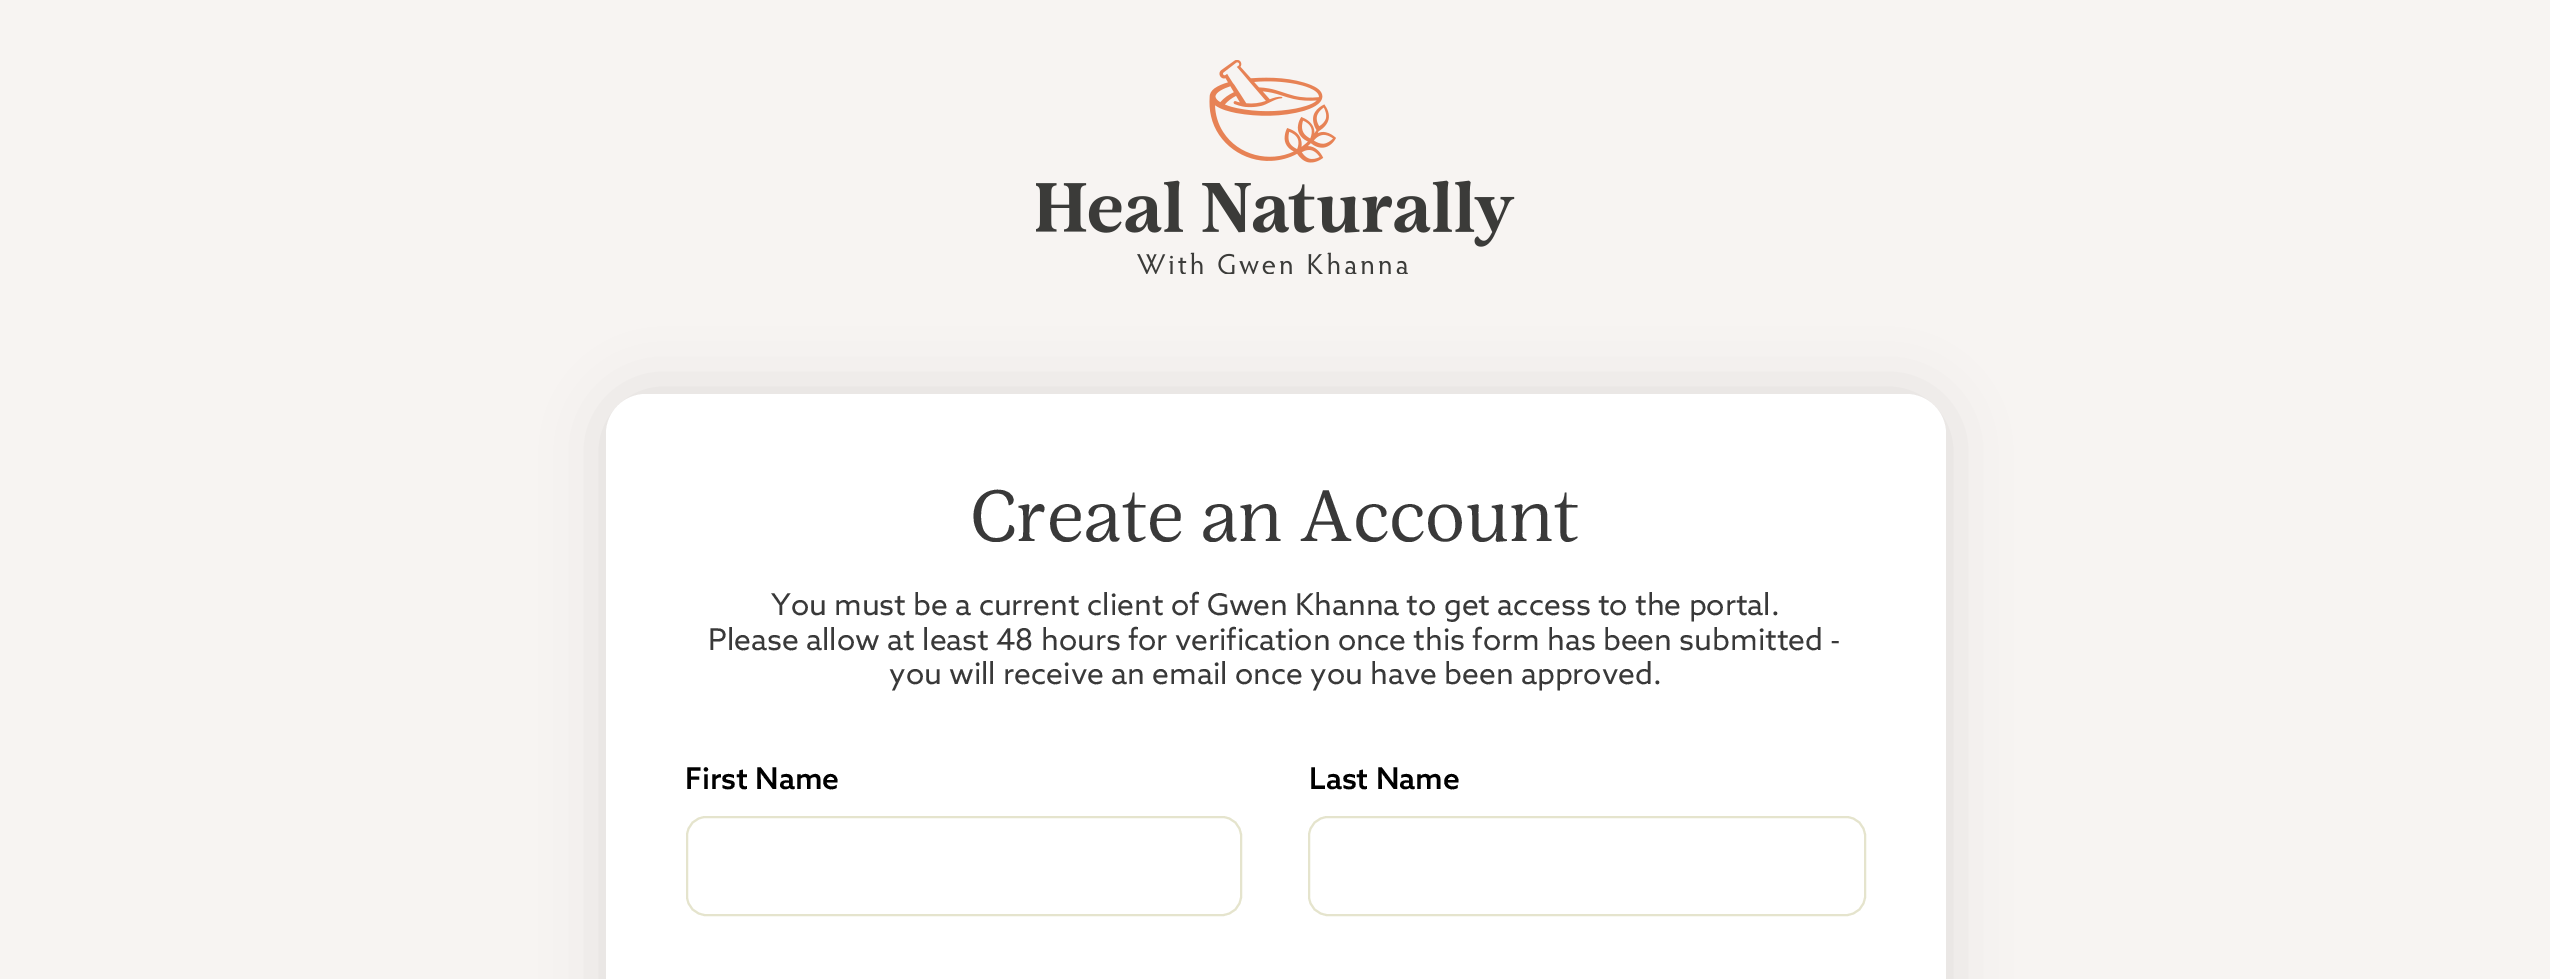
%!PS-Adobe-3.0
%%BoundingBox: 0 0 2550 979
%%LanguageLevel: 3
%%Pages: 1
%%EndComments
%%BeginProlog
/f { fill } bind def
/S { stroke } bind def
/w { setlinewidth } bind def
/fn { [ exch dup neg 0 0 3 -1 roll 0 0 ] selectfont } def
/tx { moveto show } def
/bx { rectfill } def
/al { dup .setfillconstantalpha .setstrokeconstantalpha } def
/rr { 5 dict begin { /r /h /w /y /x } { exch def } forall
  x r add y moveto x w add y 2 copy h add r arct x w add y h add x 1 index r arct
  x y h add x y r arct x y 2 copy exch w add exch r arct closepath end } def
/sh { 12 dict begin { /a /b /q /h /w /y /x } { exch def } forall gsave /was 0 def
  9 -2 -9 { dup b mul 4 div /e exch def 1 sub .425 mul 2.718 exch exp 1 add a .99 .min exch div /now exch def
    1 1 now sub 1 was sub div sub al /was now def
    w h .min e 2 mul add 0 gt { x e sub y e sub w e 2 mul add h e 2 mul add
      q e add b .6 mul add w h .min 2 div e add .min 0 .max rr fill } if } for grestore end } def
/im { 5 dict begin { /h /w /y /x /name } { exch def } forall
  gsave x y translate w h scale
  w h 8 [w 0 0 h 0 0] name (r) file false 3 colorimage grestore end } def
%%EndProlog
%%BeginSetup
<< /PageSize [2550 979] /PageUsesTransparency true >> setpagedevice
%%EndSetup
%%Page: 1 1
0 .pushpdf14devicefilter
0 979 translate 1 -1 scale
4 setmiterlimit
0.969 0.957 0.949 setrgbcolor
0 0 2550 979 bx
(image0.raw) 1036 60 479 214 im
0 setgray
606 394 1340 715 40 30 0.1 sh
1 setgray
606 394 1340 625 40 rr f
/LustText-Regular 72 fn
0.224 setgray
(Create an Account) 970 541 tx
/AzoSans-Regular 30 fn
(You must be a current client of Gwen Khanna to get access to the portal.) 771 615 tx
(Please allow at least 48 hours for verification once this form has been submitted -) 708 650 tx
(you will receive an email once you have been approved.) 889 684 tx
/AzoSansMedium-Medium 30 fn
0 setgray
(First Name) 685 789 tx
0.898 0.894 0.804 setrgbcolor
2 w
687 817 554 98 19 rr S
0 setgray
(Last Name) 1309 789 tx
0.898 0.894 0.804 setrgbcolor
1309 817 556 98 19 rr S
.poppdf14devicefilter showpage
%%EOF
